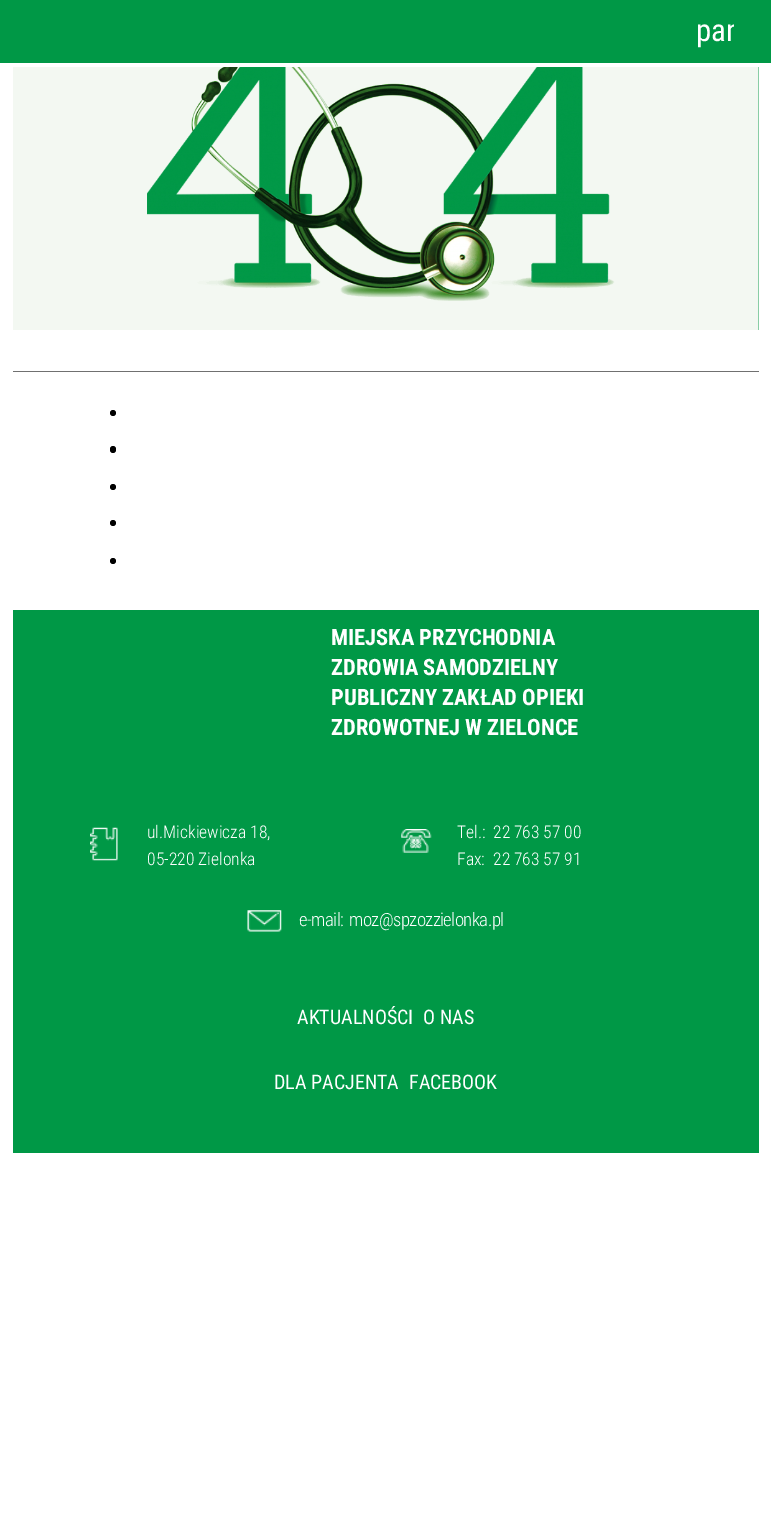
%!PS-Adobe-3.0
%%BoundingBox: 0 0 771 1521
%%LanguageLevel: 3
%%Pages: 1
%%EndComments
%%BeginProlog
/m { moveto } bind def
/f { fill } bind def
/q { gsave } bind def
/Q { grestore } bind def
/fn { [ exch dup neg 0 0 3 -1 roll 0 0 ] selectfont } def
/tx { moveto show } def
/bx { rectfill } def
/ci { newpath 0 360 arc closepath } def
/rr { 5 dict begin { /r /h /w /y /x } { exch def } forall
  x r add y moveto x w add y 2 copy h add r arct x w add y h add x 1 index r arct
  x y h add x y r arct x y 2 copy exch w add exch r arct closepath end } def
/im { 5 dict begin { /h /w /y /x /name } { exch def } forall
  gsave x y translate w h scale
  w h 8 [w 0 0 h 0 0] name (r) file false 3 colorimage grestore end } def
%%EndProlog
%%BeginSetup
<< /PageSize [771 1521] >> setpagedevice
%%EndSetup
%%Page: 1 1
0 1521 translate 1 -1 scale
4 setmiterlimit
1 setgray
0 0 771 1521 bx
0 0.596 0.275 setrgbcolor
0 0 771 63 bx
q
696 13 38 37 rectclip
/RobotoCondensed-Regular 31 fn
1 setgray
(pan) 696 41 tx
Q
13 67 746 263 bx
(image0.raw) 13 67 746 263 im
0.439 setgray
13 371 746 1 bx
0 setgray
113 413 3 ci f
110 446 6 7 3 rr f
113 487 3 ci f
113 523 3 ci f
113 561 3 ci f
0 0.596 0.275 setrgbcolor
13 610 746 543 bx
/RobotoCondensed-Bold 22.5 fn
1 setgray
(MIEJSKA PRZYCHODNIA) 331 645 tx
(ZDROWIA SAMODZIELNY) 331 675 tx
(PUBLICZNY ZAKŁAD OPIEKI) 331 705 tx
(ZDROWOTNEJ W ZIELONCE) 331 735 tx
(image1.raw) 90 827 28 34 im
/RobotoCondensed-Light 17.5 fn
(ul.Mickiewicza 18,) 147 838 tx
(05-220 Zielonka) 147 865 tx
(image2.raw) 401 829 31 24 im
(Tel.:) 457 838 tx
(22 763 57 00) 493 838 tx
(Fax:) 457 865 tx
(22 763 57 91) 493 865 tx
(image3.raw) 247 910 35 22 im
/RobotoCondensed-Light 18.75 fn
299 926 m -0.6 0 (e-mail:) ashow
349 926 m -0.6 0 (moz@spzozzielonka.pl) ashow
/RobotoCondensed-Regular 20 fn
(AKTUALNOŚCI) 297 1024 tx
(O NAS) 423 1024 tx
(DLA PACJENTA) 274 1089 tx
(FACEBOOK) 409 1089 tx
showpage
%%EOF
